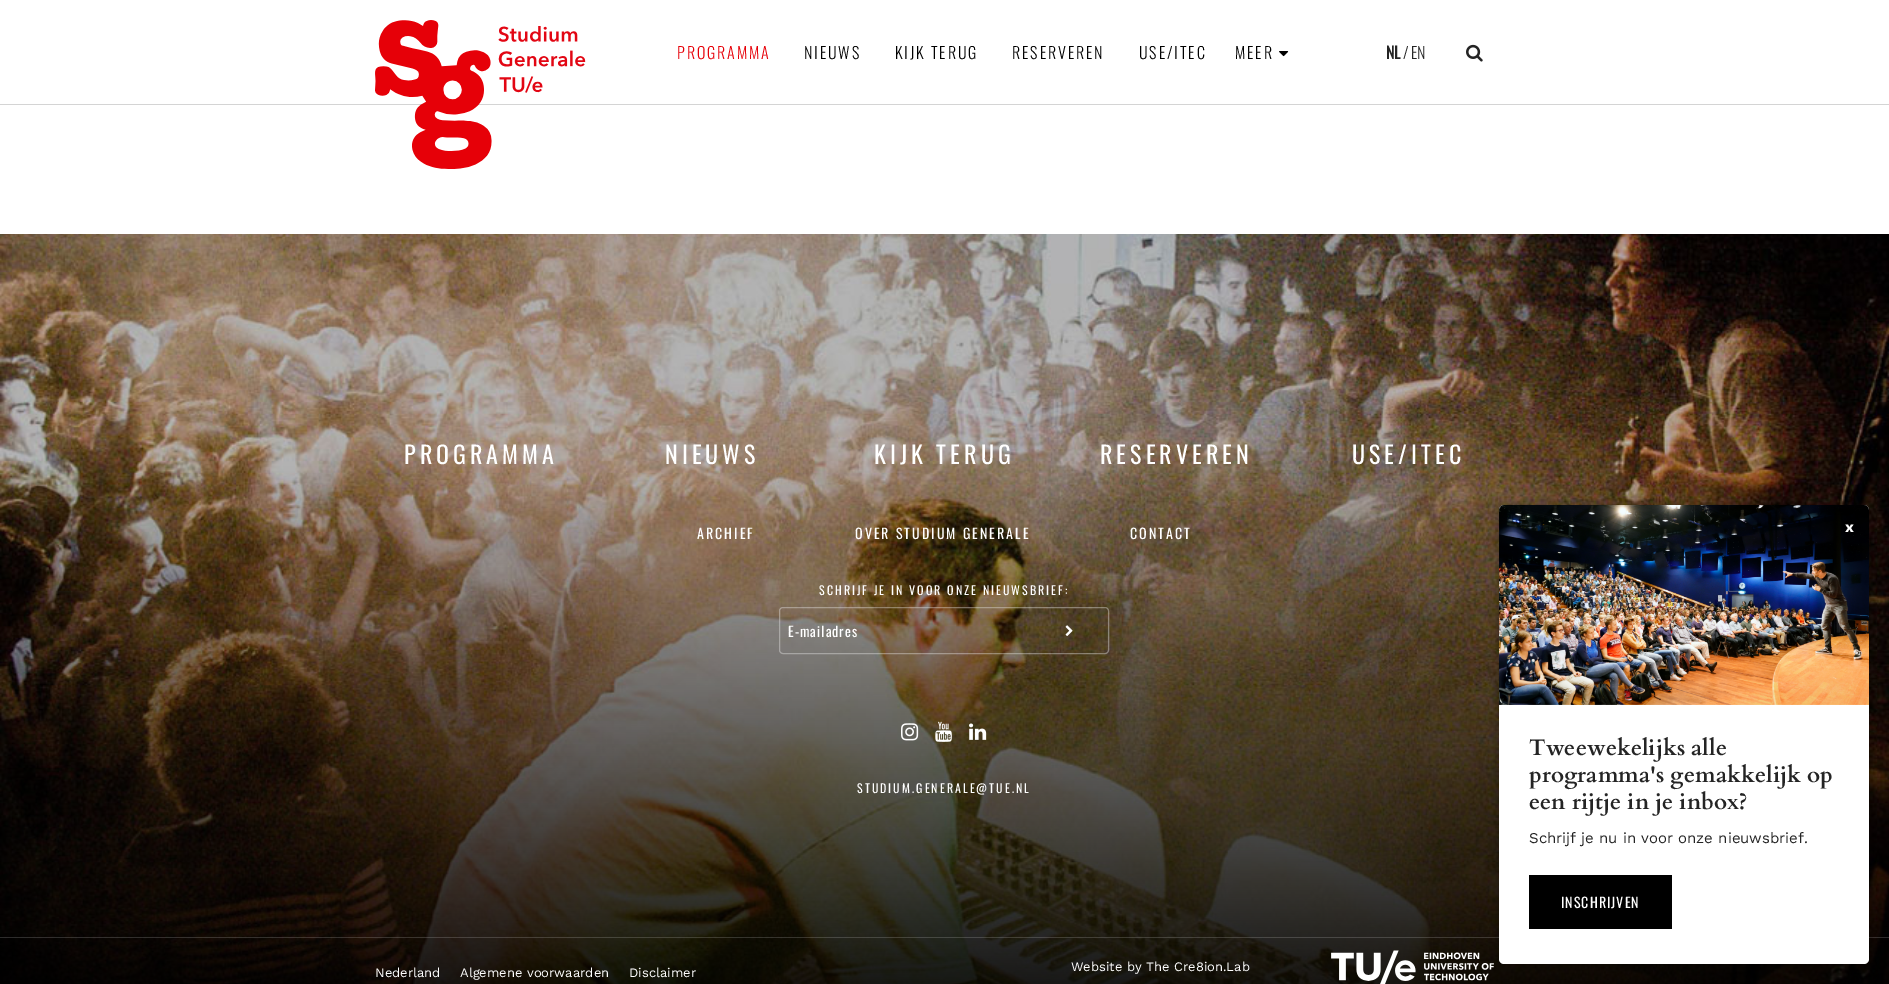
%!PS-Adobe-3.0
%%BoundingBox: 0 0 1889 984
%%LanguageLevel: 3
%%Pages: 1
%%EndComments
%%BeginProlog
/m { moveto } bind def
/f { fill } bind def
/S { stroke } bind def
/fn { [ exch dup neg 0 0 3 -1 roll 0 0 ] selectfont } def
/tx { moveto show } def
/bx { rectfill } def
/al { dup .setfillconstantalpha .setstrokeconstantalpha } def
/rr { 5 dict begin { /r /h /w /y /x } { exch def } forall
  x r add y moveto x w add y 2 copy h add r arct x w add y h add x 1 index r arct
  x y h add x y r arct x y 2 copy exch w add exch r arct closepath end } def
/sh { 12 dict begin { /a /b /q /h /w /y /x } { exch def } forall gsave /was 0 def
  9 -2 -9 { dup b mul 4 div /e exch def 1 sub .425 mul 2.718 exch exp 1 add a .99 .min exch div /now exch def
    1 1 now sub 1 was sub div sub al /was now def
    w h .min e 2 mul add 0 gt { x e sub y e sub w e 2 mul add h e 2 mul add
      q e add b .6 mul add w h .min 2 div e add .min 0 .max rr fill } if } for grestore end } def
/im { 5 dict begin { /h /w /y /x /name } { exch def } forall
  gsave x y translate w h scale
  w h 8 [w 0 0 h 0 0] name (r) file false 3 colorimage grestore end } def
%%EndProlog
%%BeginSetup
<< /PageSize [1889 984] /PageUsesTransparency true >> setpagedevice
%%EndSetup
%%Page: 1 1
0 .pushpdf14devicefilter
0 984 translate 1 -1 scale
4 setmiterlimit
1 setgray
0 0 1889 984 bx
0.831 setgray
0 104 1889 1 bx
(image0.raw) 375 20 211 149 im
/Oswald-Light 16 fn
0.902 0 0.031 setrgbcolor
677 59 m 1.9 0 (PROGRAMMA) ashow
0 setgray
804 59 m 1.9 0 (NIEUWS) ashow
895 59 m 1.9 0 (KIJK TERUG) ashow
1012 59 m 1.9 0 (RESERVEREN) ashow
1139 59 m 1.9 0 (USE/ITEC) ashow
1235 59 m 1.9 0 (MEER) ashow
(image1.raw) 1279 51 10 6 im
/Oswald-Bold 16 fn
0.141 setgray
(NL) 1386 59 tx
/Oswald-Light 16 fn
(/) 1403 59 tx
(EN) 1411 59 tx
(image2.raw) 1466 44 17 18 im
(image3.raw) 0 234 1889 750 im
/Oswald-Regular 24 fn
1 setgray
404 464 m 4 0 (PROGRAMMA) ashow
665 464 m 4 0 (NIEUWS) ashow
874 464 m 4 0 (KIJK TERUG) ashow
1100 464 m 4 0 (RESERVEREN) ashow
1352 464 m 4 0 (USE/ITEC) ashow
/Oswald-Regular 14 fn
697 539 m 2 0 (ARCHIEF) ashow
855 539 m 2 0 (OVER STUDIUM GENERALE) ashow
1130 539 m 2 0 (CONTACT) ashow
/Oswald-Regular 12 fn
819 595 m 2 0 (SCHRIJF JE IN VOOR ONZE NIEUWSBRIEF:) ashow
0.4 al
0.918 setgray
779.5 607.5 329 46 3.5 rr S
/Oswald-Regular 14 fn
1 al
1 setgray
788 637 m 1 0 (E-mailadres) ashow
(image4.raw) 1065 625 8 11 im
(image5.raw) 901 723 18 18 im
(image6.raw) 935 721 17 21 im
(image7.raw) 969 723 18 17 im
/Oswald-Regular 12 fn
857 793 m 2 0 (STUDIUM.GENERALE@TUE.NL) ashow
0.2 al
0.847 setgray
0 937 1889 1 bx
/WorkSans-Regular 13 fn
1 al
1 setgray
(Nederland) 375 977 tx
(Algemene voorwaarden) 460 977 tx
(Disclaimer) 629 977 tx
(Website by The Cre8ion.Lab) 1071 971 tx
(image8.raw) 1331 950 163 34 im
0 setgray
1499 505 370 459 5 5 0.3 sh
1 setgray
1499 505 370 459 5 rr f
(image9.raw) 1499 505 370 200 im
/WorkSans-Bold 15 fn
(x) 1845 532 tx
/Cardo-Bold 22.5 fn
0.141 setgray
(Tweewekelijks alle) 1529 755 tx
(programma's gemakkelijk op) 1529 782 tx
(een rijtje in je inbox?) 1529 809 tx
/WorkSans-Regular 15 fn
(Schrijf je nu in voor onze nieuwsbrief.) 1529 843 tx
0 setgray
1529 875 143 54 bx
/Oswald-Regular 14 fn
1 setgray
1561 908 m 1 0 (INSCHRIJVEN) ashow
.poppdf14devicefilter showpage
%%EOF
